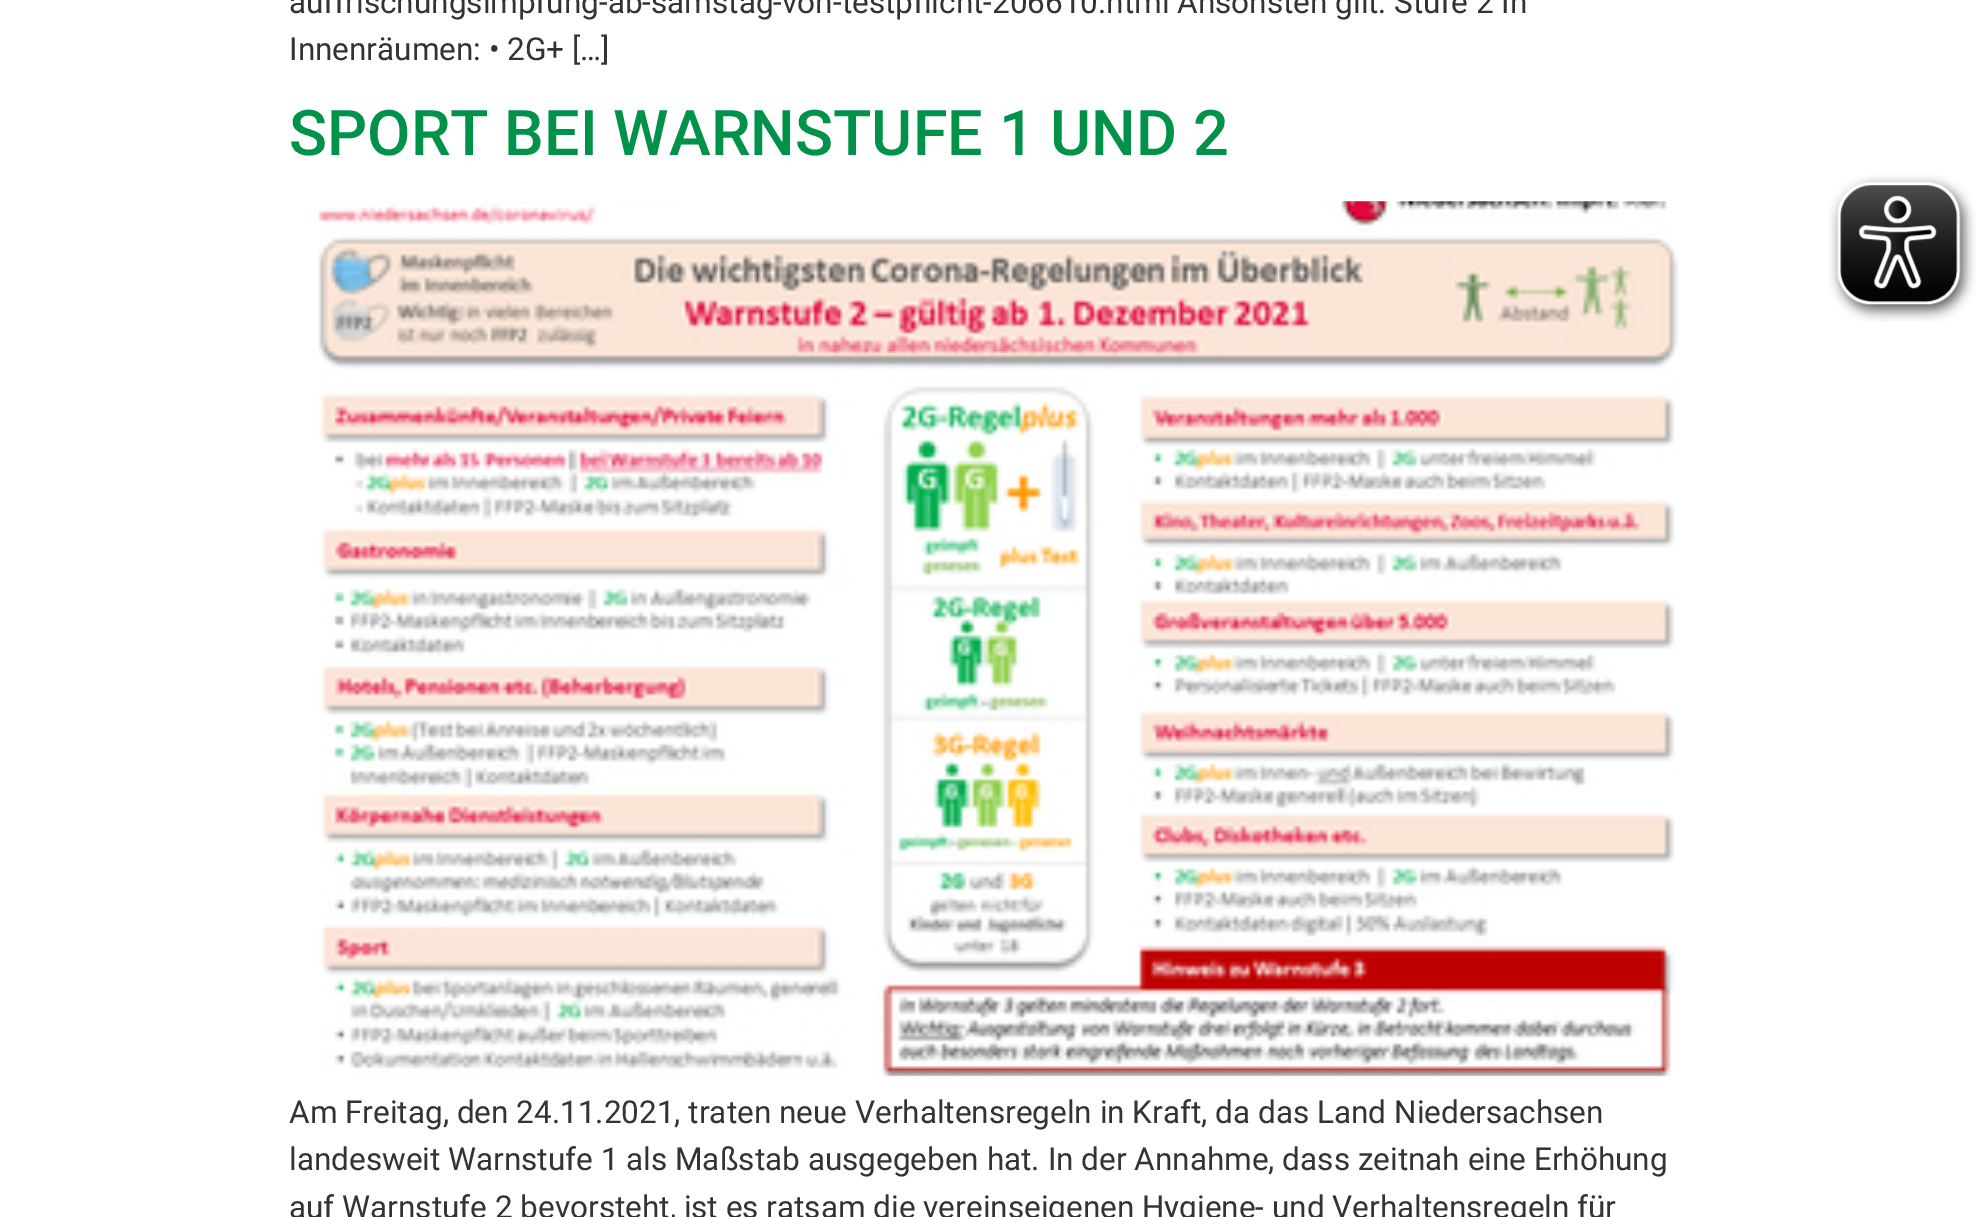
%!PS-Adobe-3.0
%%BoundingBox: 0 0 1977 1217
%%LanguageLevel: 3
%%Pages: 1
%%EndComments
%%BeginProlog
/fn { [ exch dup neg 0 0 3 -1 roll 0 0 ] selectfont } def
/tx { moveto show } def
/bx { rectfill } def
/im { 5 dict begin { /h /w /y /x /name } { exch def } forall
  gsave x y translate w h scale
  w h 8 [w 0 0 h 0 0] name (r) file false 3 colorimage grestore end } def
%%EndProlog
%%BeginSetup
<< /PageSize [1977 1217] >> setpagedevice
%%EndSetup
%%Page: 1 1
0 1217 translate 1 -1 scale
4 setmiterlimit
1 setgray
0 0 1977 1217 bx
/Roboto-Regular 31.5 fn
0.2 setgray
(auffrischungsimpfung-ab-samstag-von-testpflicht-206610.html Ansonsten gilt: Stufe 2 In) 289 13 tx
(Innenräumen: • 2G+ […]) 289 60 tx
/Roboto-Medium 63 fn
0 0.573 0.286 setrgbcolor
(SPORT BEI WARNSTUFE 1 UND 2) 289 155 tx
(image0.raw) 316 201 1363 876 im
/Roboto-Regular 31.5 fn
0.2 setgray
(Am Freitag, den 24.11.2021, traten neue Verhaltensregeln in Kraft, da das Land Niedersachsen) 289 1123 tx
(landesweit Warnstufe 1 als Maßstab ausgegeben hat. In der Annahme, dass zeitnah eine Erhöhung) 289 1170 tx
(auf Warnstufe 2 bevorsteht, ist es ratsam die vereinseigenen Hygiene- und Verhaltensregeln für) 289 1218 tx
(image1.raw) 1828 175 148 147 im
showpage
%%EOF
